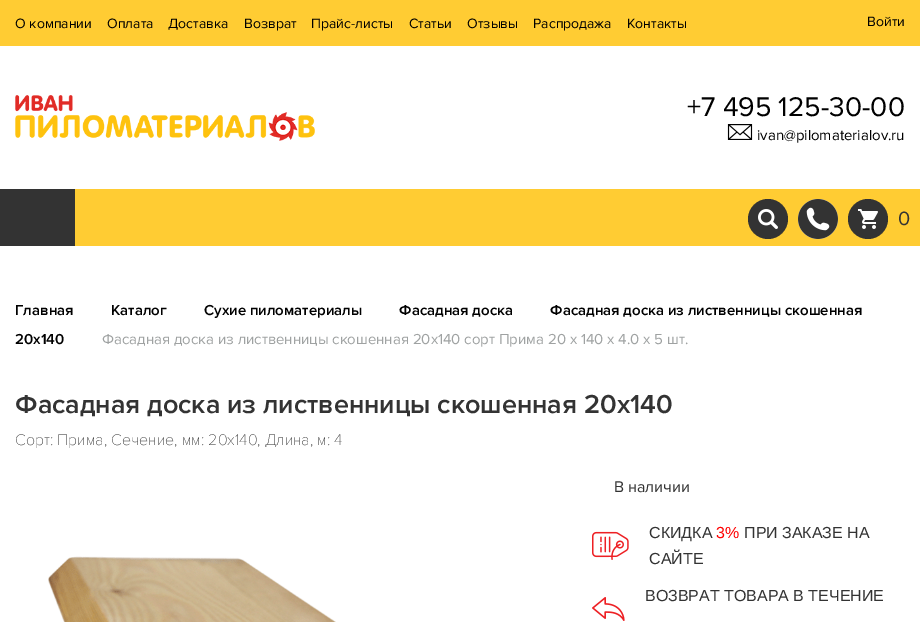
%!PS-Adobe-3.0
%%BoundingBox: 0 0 920 622
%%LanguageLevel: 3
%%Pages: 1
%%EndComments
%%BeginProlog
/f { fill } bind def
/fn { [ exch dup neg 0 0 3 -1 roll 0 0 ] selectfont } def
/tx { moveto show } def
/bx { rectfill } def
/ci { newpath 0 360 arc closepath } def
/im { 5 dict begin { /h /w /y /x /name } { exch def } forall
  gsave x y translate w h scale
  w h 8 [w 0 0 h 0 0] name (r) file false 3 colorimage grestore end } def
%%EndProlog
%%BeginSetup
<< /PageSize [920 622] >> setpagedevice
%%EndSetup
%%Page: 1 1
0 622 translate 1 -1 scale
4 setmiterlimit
1 setgray
0 0 920 622 bx
1 0.8 0.2 setrgbcolor
0 0 920 46 bx
/ProximaNova-Regular 14 fn
0 setgray
(О компании) 15 28 tx
(Оплата) 107 28 tx
(Доставка) 168 28 tx
(Возврат) 244 28 tx
(Прайс-листы) 311 28 tx
(Статьи) 409 28 tx
(Отзывы) 467 28 tx
(Распродажа) 533 28 tx
(Контакты) 627 28 tx
(Войти) 867 26 tx
(image0.raw) 15 95 300 46 im
/ProximaNova-Regular 28 fn
(+7 495 125-30-00) 687 116 tx
(image1.raw) 727 124 26 16 im
/ProximaNova-Regular 15 fn
(ivan@pilomaterialov.ru) 757 140 tx
1 0.8 0.2 setrgbcolor
75 189 845 57 bx
0.2 setgray
0 189 75 57 bx
768 219 20 ci f
(image2.raw) 758 209 20 20 im
1 setgray
818 219 20 ci f
(image3.raw) 798 199 40 40 im
0.2 setgray
868 219 20 ci f
(image4.raw) 858 209 20 20 im
/ProximaNova-Regular 20 fn
(0) 898 225 tx
/ProximaNova-SemiBold 15 fn
0 setgray
(Главная) 15 315 tx
(Каталог) 111 315 tx
(Сухие пиломатериалы) 204 315 tx
(Фасадная доска) 399 315 tx
(Фасадная доска из лиственницы скошенная) 550 315 tx
(20х140) 15 344 tx
/ProximaNova-Regular 15 fn
0.624 0.635 0.635 setrgbcolor
(Фасадная доска из лиственницы скошенная 20х140 сорт Прима 20 x 140 x 4.0 x 5 шт.) 102 344 tx
/ProximaNova-SemiBold 27 fn
0.2 setgray
(Фасадная доска из лиственницы скошенная 20х140) 15 413 tx
/ProximaNova-Thin 16 fn
(Сорт: Прима, Сечение, мм: 20x140, Длина, м: 4) 15 445 tx
(image5.raw) 48 556 288 66 im
/ProximaNova-Regular 16 fn
(В наличии) 614 492 tx
(image6.raw) 592 531 37 29 im
/LiberationSans-Regular 16 fn
(СКИДКА) 649 538 tx
1 0 0 setrgbcolor
(3%) 716 538 tx
0.2 setgray
(ПРИ ЗАКАЗЕ НА) 744 538 tx
(САЙТЕ) 649 564 tx
(ВОЗВРАТ ТОВАРА В ТЕЧЕНИЕ) 645 601 tx
(image7.raw) 592 597 33 24 im
showpage
%%EOF
